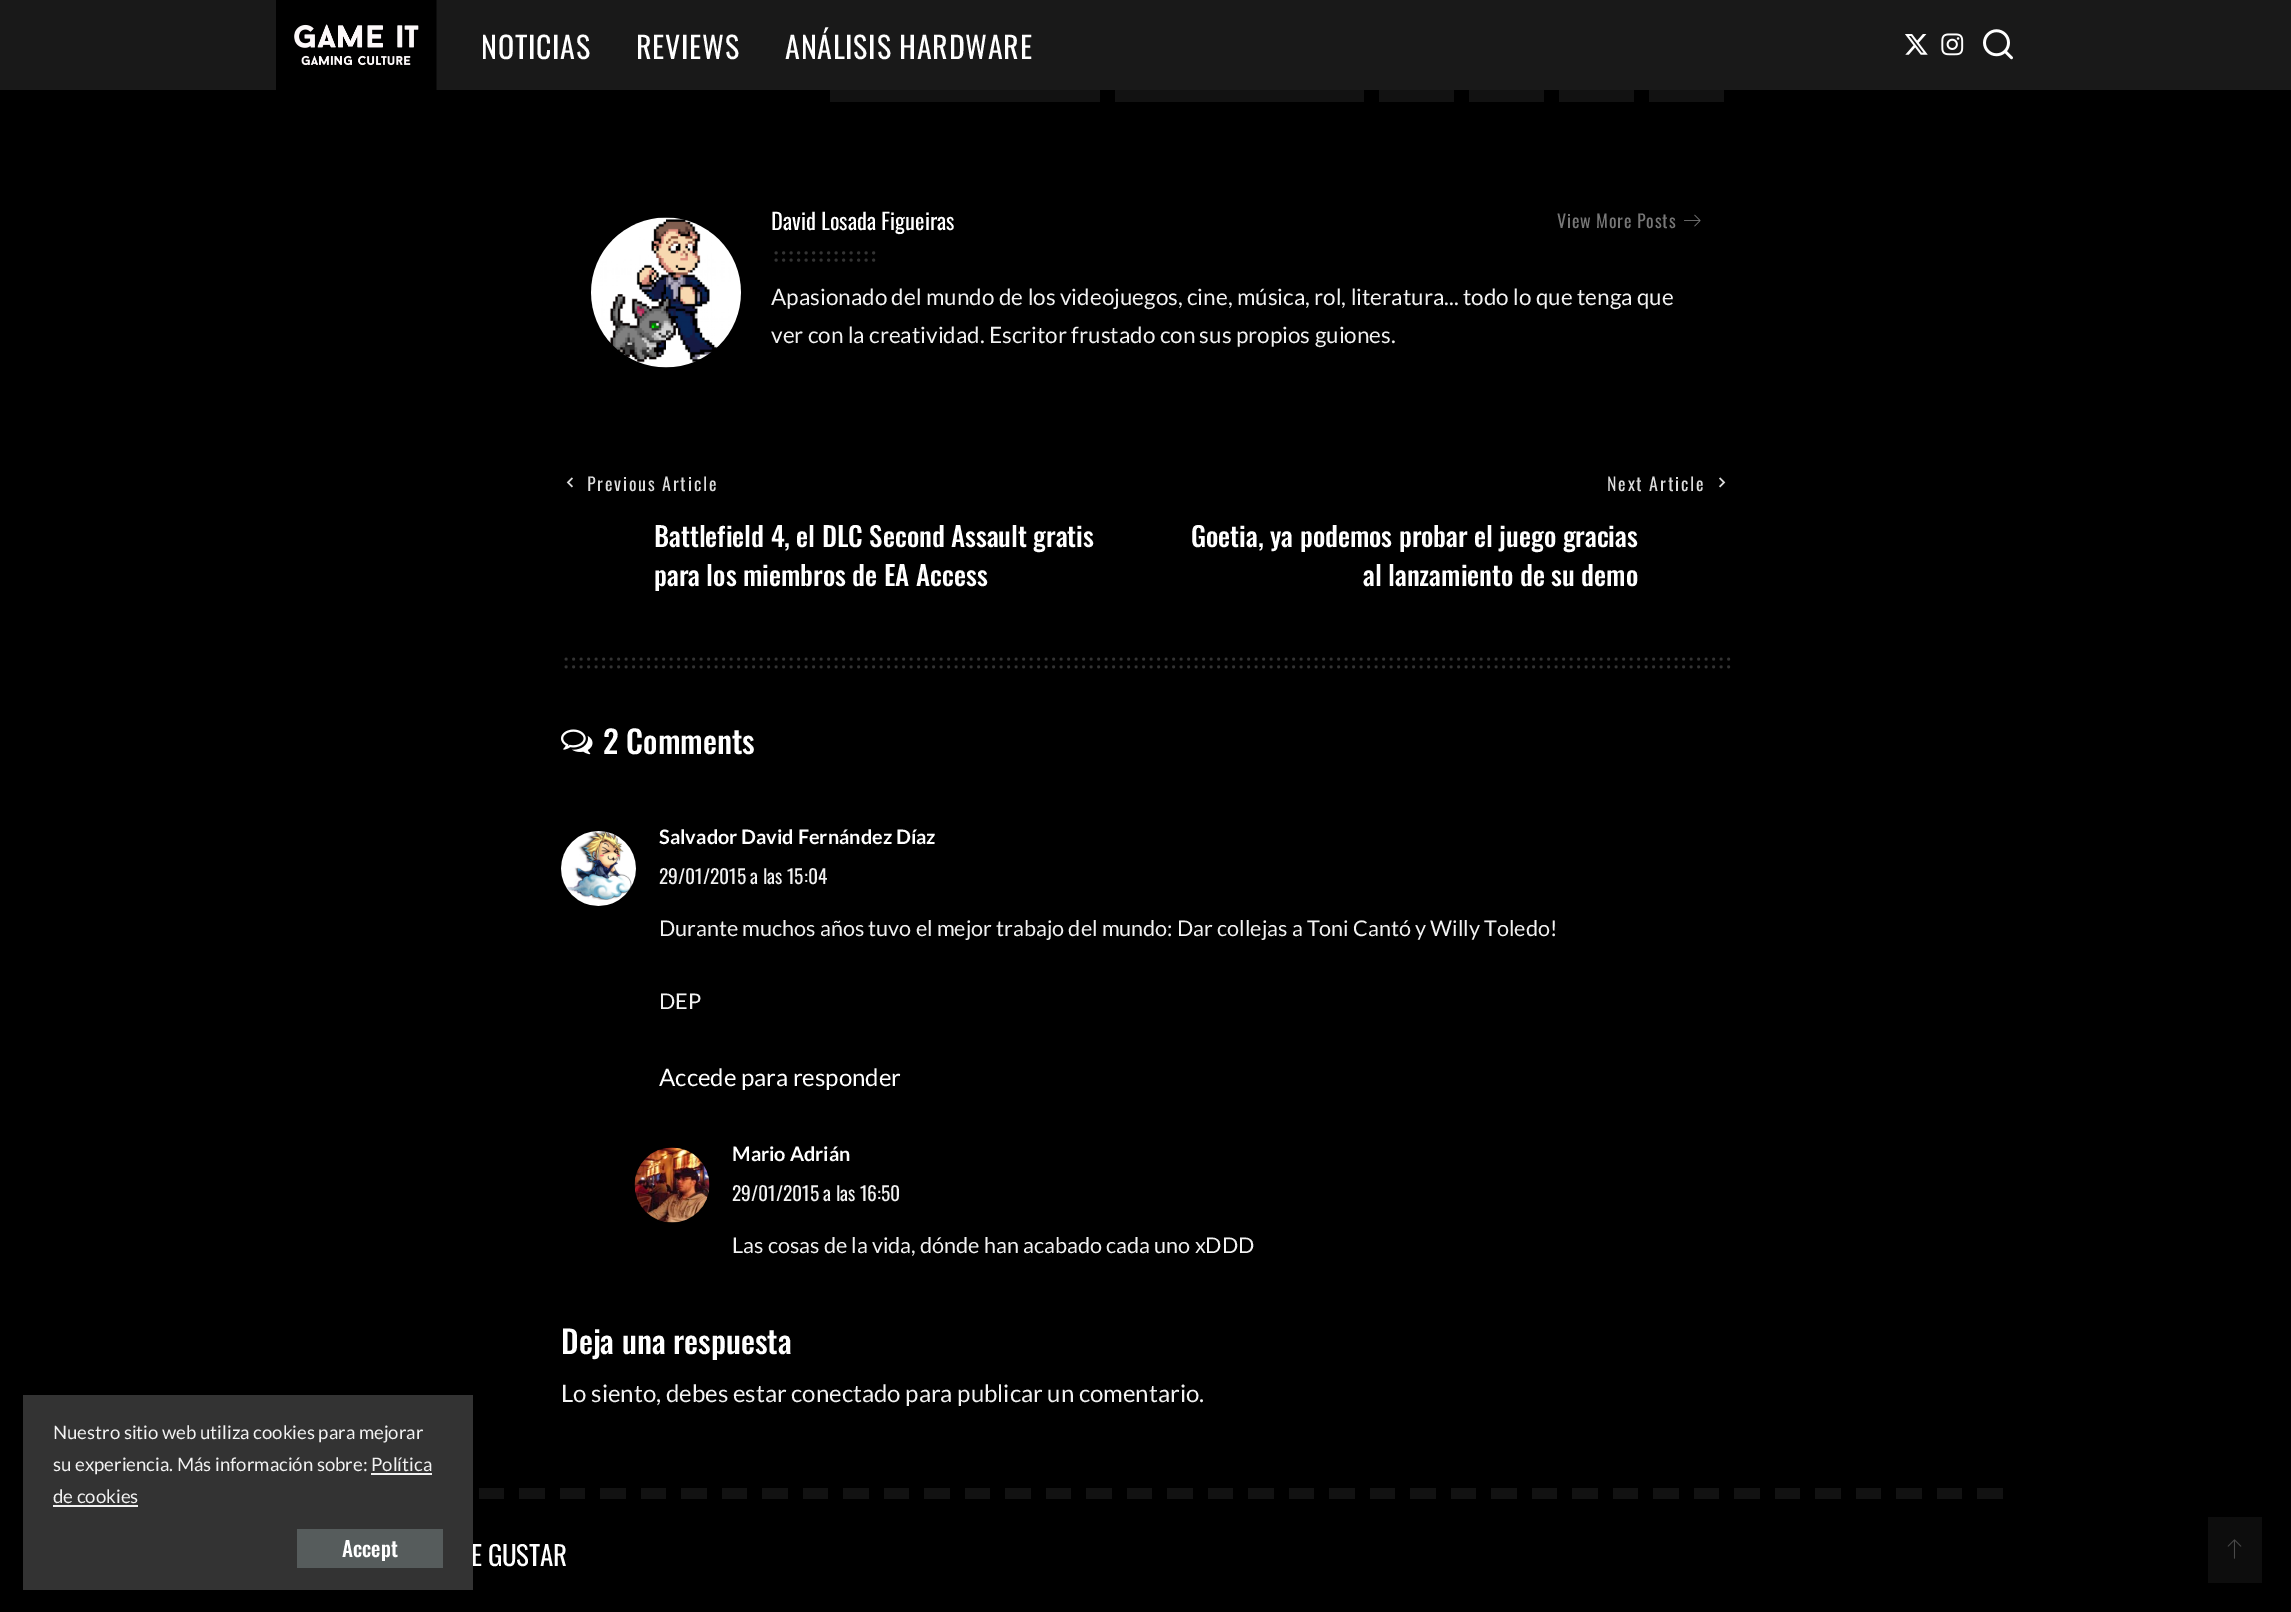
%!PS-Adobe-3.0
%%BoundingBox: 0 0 2291 1612
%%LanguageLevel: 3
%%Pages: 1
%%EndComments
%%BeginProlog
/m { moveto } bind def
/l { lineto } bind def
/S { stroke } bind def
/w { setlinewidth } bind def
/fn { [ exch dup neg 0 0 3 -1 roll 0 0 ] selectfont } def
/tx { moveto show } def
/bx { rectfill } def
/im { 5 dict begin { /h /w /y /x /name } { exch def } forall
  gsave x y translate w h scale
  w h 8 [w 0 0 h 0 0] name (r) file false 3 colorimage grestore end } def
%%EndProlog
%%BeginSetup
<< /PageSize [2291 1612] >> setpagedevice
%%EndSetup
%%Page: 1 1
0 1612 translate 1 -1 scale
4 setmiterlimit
0 setgray
0 0 2291 1612 bx
/Oswald-Regular 27 fn
1 setgray
471 1566 m -0.25 0 (E GUSTAR) ashow
0.2 setgray
23 1395 450 195 bx
/Lato-Regular 18.6 fn
0.949 setgray
(Nuestro sitio web utiliza cookies para mejorar) 53 1439 tx
(su experiencia. Más información sobre: Política) 53 1471 tx
(de cookies) 53 1503 tx
371 1473 61 2 bx
53 1505 85 2 bx
0.337 0.361 0.361 setrgbcolor
297 1529 146 39 bx
/Oswald-Medium 21 fn
1 setgray
(Accept) 342 1557 tx
0.098 setgray
0 0 2291 90 bx
(image0.raw) 276 0 161 90 im
/Oswald-Regular 30 fn
1 setgray
481 59 m 0.75 0 (NOTICIAS) ashow
636 59 m 0.75 0 (REVIEWS) ashow
785 59 m 0.75 0 (ANÁLISIS HARDWARE) ashow
(image1.raw) 1905 34 23 21 im
(image2.raw) 1941 33 23 23 im
(image3.raw) 1983 29 30 31 im
0.071 setgray
830 90 270 12 bx
1115 90 249 12 bx
1379 90 75 12 bx
1469 90 75 12 bx
1559 90 75 12 bx
1649 90 75 12 bx
(image4.raw) 591 217 150 151 im
/Oswald-Regular 22.5 fn
1 setgray
(David Losada Figueiras) 771 230 tx
/Oswald-Regular 18 fn
0.467 setgray
1557 228 m 0.75 0 (View More Posts) ashow
(image5.raw) 1684 214 17 13 im
0.2 setgray
3 w
1 setlinecap
[0 7.5] 0 setdash
776.2 252.8 m 874.1 252.8 l S
776.2 260.2 m 874.1 260.2 l S
/Lato-Regular 22.5 fn
0.949 setgray
(Apasionado del mundo de los videojuegos, cine, música, rol, literatura... todo lo que tenga que) 771 305 tx
(ver con la creatividad. Escritor frustado con sus propios guiones.) 771 343 tx
(image6.raw) 566 477 7 11 im
/Oswald-Regular 18 fn
0.867 setgray
587 491 m 1.75 0 (Previous Article) ashow
/Oswald-Medium 27 fn
1 setgray
(Battlefield 4, el DLC Second Assault gratis) 654 547 tx
(para los miembros de EA Access) 654 586 tx
/Oswald-Regular 18 fn
0.867 setgray
1607 491 m 1.75 0 (Next Article) ashow
(image7.raw) 1719 477 7 11 im
/Oswald-Medium 27 fn
1 setgray
(Goetia, ya podemos probar el juego gracias) 1191 547 tx
(al lanzamiento de su demo) 1363 586 tx
0.2 setgray
566.2 659.2 m 1729.1 659.2 l S
566.2 666.8 m 1729.1 666.8 l S
(image8.raw) 561 729 32 26 im
/Oswald-Medium 31.5 fn
1 setgray
(2 Comments) 603 754 tx
(image9.raw) 561 831 75 75 im
/Lato-Bold 19.9 fn
(Salvador David Fernández Díaz) 659 844 tx
/Oswald-Regular 19.5 fn
0.949 setgray
(29/01/2015 a las 15:04) 659 884 tx
/Lato-Regular 21.6 fn
(Durante muchos años tuvo el mejor trabajo del mundo: Dar collejas a Toni Cantó y Willy Toledo!) 659 936 tx
(DEP) 659 1009 tx
/Lato-Regular 24 fn
1 setgray
(Accede para responder) 659 1086 tx
(image10.raw) 634 1147 76 76 im
/Lato-Bold 19.9 fn
(Mario Adrián) 732 1161 tx
/Oswald-Regular 19.5 fn
0.949 setgray
(29/01/2015 a las 16:50) 732 1201 tx
/Lato-Regular 21.6 fn
(Las cosas de la vida, dónde han acabado cada uno xDDD) 732 1253 tx
/Oswald-Medium 31.5 fn
1 setgray
(Deja una respuesta) 561 1354 tx
/Lato-Regular 24 fn
0.949 setgray
(Lo siento, debes estar conectado para publicar un comentario.) 561 1402 tx
(image11.raw) 479 1488 1524 11 im
0.051 setgray
2208 1517 54 66 bx
(image12.raw) 2227 1539 15 20 im
showpage
%%EOF
